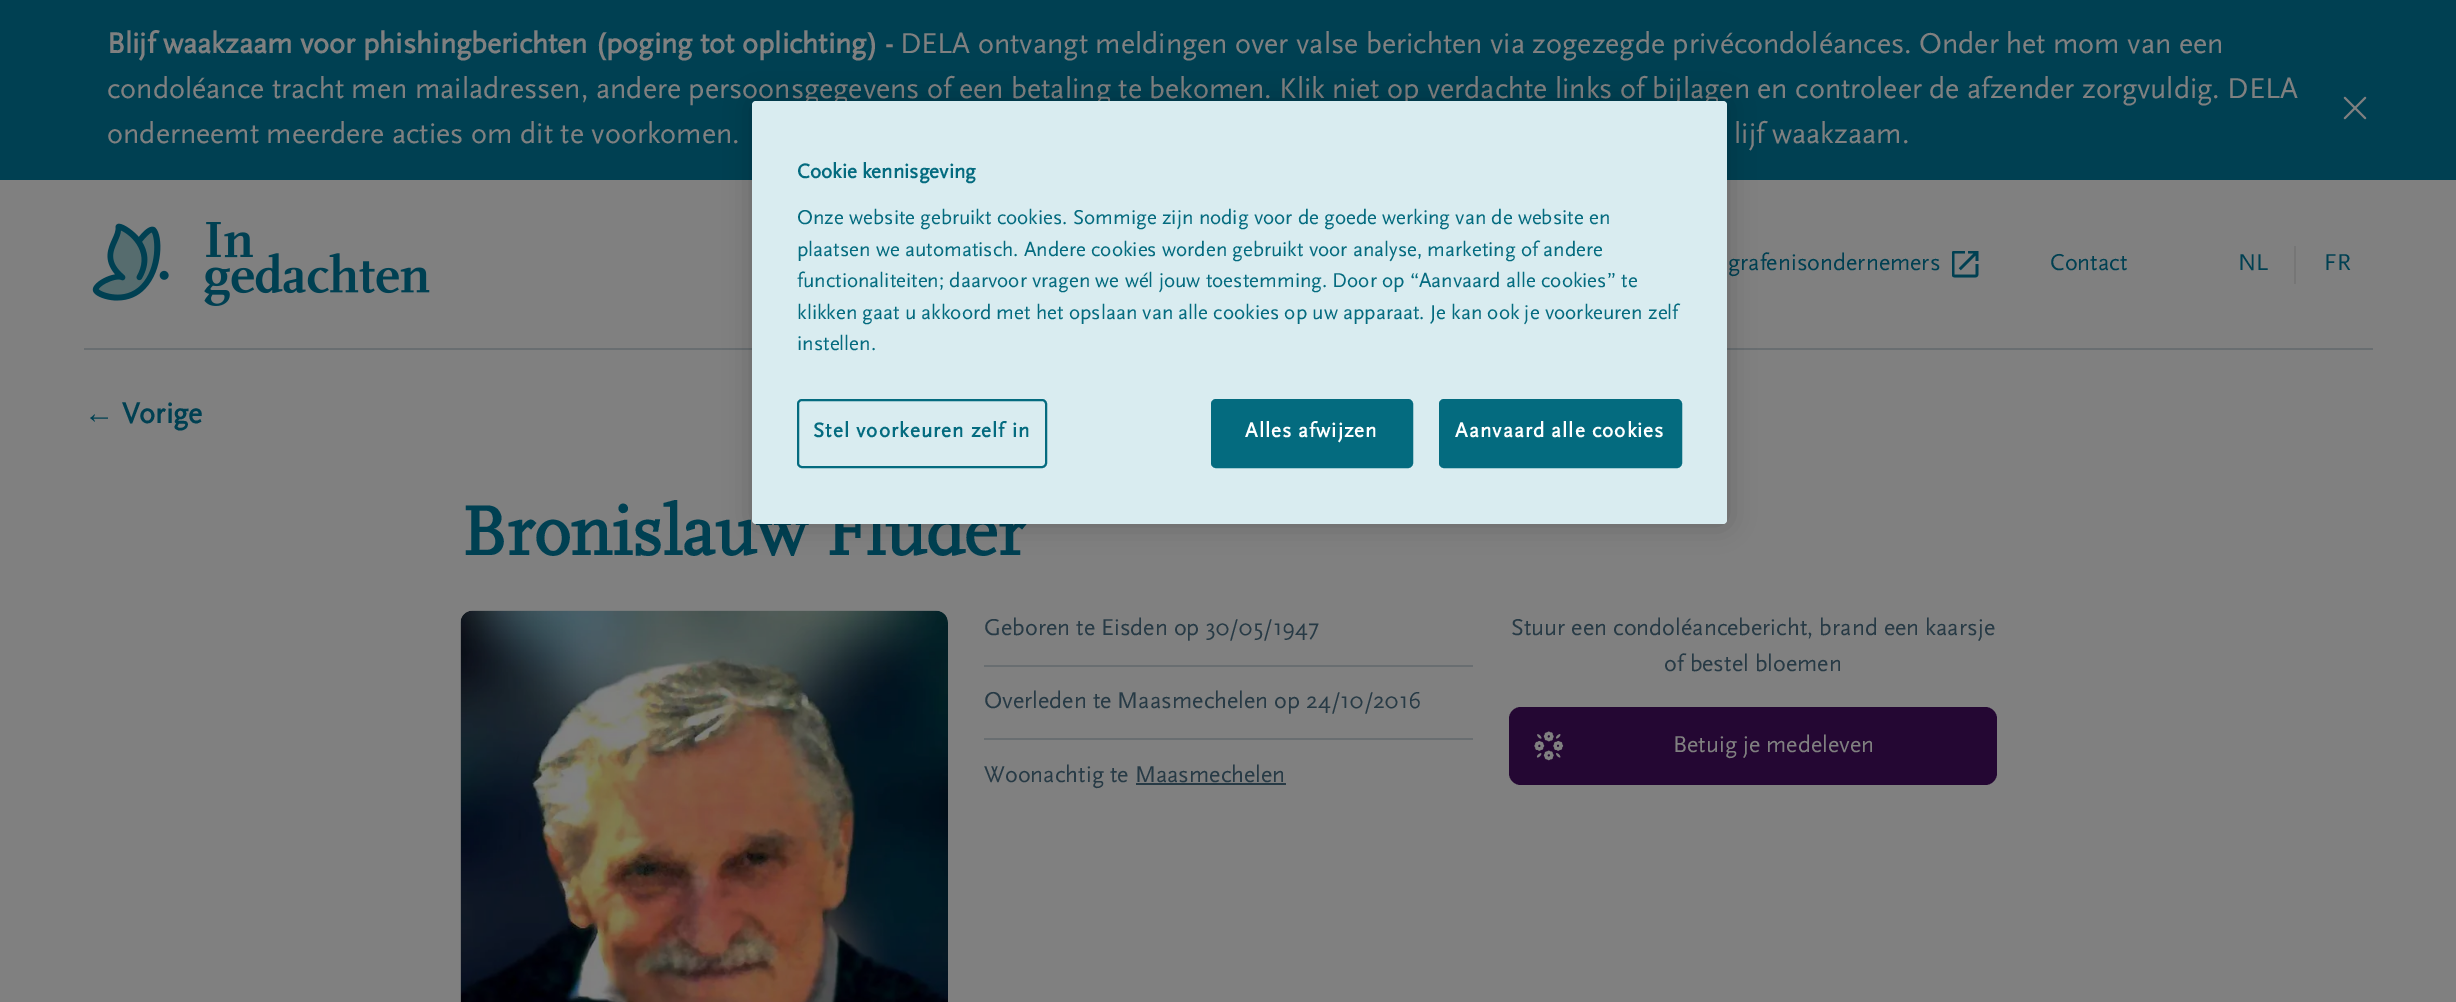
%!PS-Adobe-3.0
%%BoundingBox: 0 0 2456 1002
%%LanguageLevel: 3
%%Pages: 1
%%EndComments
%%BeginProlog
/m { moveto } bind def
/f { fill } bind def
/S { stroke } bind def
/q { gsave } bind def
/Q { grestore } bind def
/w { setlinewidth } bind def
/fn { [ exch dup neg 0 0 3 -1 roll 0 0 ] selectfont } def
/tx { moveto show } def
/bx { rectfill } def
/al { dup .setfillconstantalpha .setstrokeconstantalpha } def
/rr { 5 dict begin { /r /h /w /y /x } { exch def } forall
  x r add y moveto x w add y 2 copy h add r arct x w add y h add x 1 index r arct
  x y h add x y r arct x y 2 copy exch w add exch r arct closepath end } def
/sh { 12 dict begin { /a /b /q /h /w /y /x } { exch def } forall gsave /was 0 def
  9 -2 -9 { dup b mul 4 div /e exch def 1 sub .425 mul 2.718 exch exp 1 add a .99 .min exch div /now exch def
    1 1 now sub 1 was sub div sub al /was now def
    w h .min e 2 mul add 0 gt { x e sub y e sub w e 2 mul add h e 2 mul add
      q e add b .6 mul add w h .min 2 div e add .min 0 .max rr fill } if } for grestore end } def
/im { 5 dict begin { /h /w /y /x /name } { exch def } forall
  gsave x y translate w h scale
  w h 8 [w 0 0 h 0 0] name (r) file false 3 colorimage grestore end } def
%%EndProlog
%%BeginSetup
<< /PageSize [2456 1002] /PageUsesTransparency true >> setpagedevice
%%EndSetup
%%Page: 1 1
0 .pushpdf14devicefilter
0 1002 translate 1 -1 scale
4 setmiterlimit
0.502 setgray
0 0 2456 1002 bx
0 0.251 0.322 setrgbcolor
0 0 2456 180 bx
/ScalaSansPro-Bold 30 fn
0.502 setgray
(Blijf waakzaam voor phishingberichten \(poging tot oplichting\) -) 107 53 tx
/ScalaSansPro-Regular 30 fn
(DELA ontvangt meldingen over valse berichten via zogezegde privécondoléances. Onder het mom van een) 900 53 tx
(condoléance tracht men mailadressen, andere persoonsgegevens of een betaling te bekomen. Klik niet op verdachte links of bijlagen en controleer de afzender zorgvuldig. DELA) 107 98 tx
(image0.raw) 2343 96 24 24 im
(onderneemt meerdere acties om dit te voorkomen.) 107 143 tx
(lijf waakzaam.) 1734 143 tx
0.412 0.431 0.443 setrgbcolor
84 348 2289 2 bx
(image1.raw) 92 222 338 84 im
/ScalaSansPro-Regular 24 fn
0 0.251 0.322 setrgbcolor
(grafenisondernemers) 1728 270 tx
(image2.raw) 1952 251 27 27 im
(Contact) 2050 270 tx
(NL) 2238 270 tx
0.463 setgray
2294 246 2 38 bx
0 0.251 0.322 setrgbcolor
(FR) 2324 270 tx
/LiberationSans-Bold 30 fn
(←) 84 423 tx
/ScalaSansPro-Bold 30 fn
(Vorige) 122 423 tx
/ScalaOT-Bold 72 fn
(Bronislauw Fluder) 461 555 tx
(image3.raw) 460 610 488 392 im
0.412 0.431 0.443 setrgbcolor
984 665 489 2 bx
/ScalaSansPro-Regular 24 fn
0.153 0.227 0.271 setrgbcolor
(Geboren te Eisden op 30/05/1947) 984 635 tx
0.412 0.431 0.443 setrgbcolor
984 738 489 2 bx
0.153 0.227 0.271 setrgbcolor
(Overleden te Maasmechelen op 24/10/2016) 984 708 tx
(Woonachtig te Maasmechelen) 984 782 tx
1136 783 150 2 bx
(Stuur een condoléancebericht, brand een kaarsje) 1511 635 tx
(of bestel bloemen) 1664 671 tx
0.141 0.027 0.2 setrgbcolor
1509 707 488 78 12 rr f
(image4.raw) 1534 731 30 30 im
0.502 setgray
(Betuig je medeleven) 1673 752 tx
0 setgray
752 101 975 423 4 13.5 0.2 sh
0.851 0.925 0.941 setrgbcolor
752 101 975 423 4 rr f
/ScalaSansPro-Bold 21 fn
0.016 0.42 0.498 setrgbcolor
(Cookie kennisgeving) 797 178 tx
/ScalaSansPro-Regular 21 fn
(Onze website gebruikt cookies. Sommige zijn nodig voor de goede werking van de website en) 797 224 tx
(plaatsen we automatisch. Andere cookies worden gebruikt voor analyse, marketing of andere) 797 256 tx
(functionaliteiten; daarvoor vragen we wél jouw toestemming. Door op “Aanvaard alle cookies” te) 797 287 tx
(klikken gaat u akkoord met het opslaan van alle cookies op uw apparaat. Je kan ook je voorkeuren zelf) 797 319 tx
(instellen.) 797 350 tx
2 w
798 400 248 67 4 rr S
/ScalaSansPro-Bold 21 fn
813 437 m 1.05 0 (Stel voorkeuren zelf in) ashow
1212 400 200 67 4 rr q f Q
S
1 setgray
1245 437 m 1.05 0 (Alles afwijzen) ashow
0.016 0.42 0.498 setrgbcolor
1440 400 241 67 4 rr q f Q
S
1 setgray
1455 437 m 1.05 0 (Aanvaard alle cookies) ashow
.poppdf14devicefilter showpage
%%EOF
